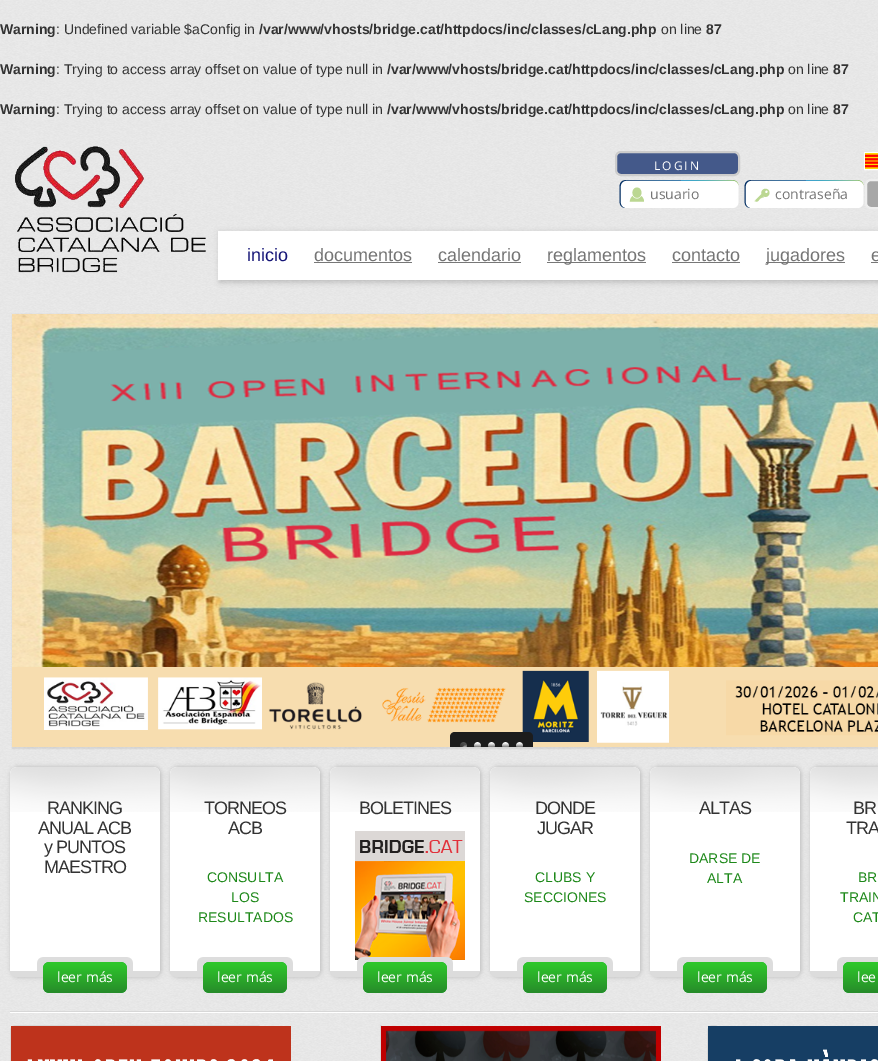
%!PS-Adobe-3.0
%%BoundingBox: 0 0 878 1061
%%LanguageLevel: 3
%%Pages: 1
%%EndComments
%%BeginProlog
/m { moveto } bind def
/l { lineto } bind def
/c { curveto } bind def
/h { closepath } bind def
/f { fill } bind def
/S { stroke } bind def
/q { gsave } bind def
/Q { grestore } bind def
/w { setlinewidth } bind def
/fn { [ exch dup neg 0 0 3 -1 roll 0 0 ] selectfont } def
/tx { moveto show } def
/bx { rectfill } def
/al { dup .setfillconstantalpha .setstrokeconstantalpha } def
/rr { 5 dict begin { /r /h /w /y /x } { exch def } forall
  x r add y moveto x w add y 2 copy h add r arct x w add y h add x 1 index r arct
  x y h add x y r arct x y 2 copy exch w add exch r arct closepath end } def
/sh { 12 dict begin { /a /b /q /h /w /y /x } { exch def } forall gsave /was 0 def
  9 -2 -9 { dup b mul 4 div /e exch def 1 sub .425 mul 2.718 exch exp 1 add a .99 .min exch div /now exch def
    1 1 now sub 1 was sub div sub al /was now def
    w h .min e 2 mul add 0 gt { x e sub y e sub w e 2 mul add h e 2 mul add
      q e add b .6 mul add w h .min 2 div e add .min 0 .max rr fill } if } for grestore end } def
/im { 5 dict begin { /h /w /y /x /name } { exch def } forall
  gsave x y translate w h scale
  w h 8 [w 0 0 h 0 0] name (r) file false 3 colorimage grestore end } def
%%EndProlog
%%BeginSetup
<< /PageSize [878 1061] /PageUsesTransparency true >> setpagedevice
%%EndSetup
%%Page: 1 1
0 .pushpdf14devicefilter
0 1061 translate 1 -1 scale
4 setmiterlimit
1 setgray
0 0 878 1061 bx
(image0.raw) 0 0 878 1061 im
/LiberationSans-Bold 14 fn
0.2 setgray
(Warning) 0 34 tx
/LiberationSans-Regular 14 fn
(: Undefined variable $aConfig in) 56 34 tx
/LiberationSans-Bold 14 fn
(/var/www/vhosts/bridge.cat/httpdocs/inc/classes/cLang.php) 259 34 tx
/LiberationSans-Regular 14 fn
(on line) 661 34 tx
/LiberationSans-Bold 14 fn
(87) 706 34 tx
(Warning) 0 74 tx
/LiberationSans-Regular 14 fn
(: Trying to access array offset on value of type null in) 56 74 tx
/LiberationSans-Bold 14 fn
(/var/www/vhosts/bridge.cat/httpdocs/inc/classes/cLang.php) 387 74 tx
/LiberationSans-Regular 14 fn
(on line) 788 74 tx
/LiberationSans-Bold 14 fn
(87) 833 74 tx
(Warning) 0 114 tx
/LiberationSans-Regular 14 fn
(: Trying to access array offset on value of type null in) 56 114 tx
/LiberationSans-Bold 14 fn
(/var/www/vhosts/bridge.cat/httpdocs/inc/classes/cLang.php) 387 114 tx
/LiberationSans-Regular 14 fn
(on line) 788 114 tx
/LiberationSans-Bold 14 fn
(87) 833 114 tx
(image1.raw) 15 146 191 127 im
0.267 0.349 0.541 setrgbcolor
616 152 123 23 5 rr q f Q
0.8 setgray
2 w
S
/OpenSans-Regular 12 fn
1 setgray
654 170 m 2 0 (LOGIN) ashow
1 w
864.5 152.5 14 17 rectstroke
(image2.raw) 865 153 13 16 im
(image3.raw) 619 180 120 28 im
/OpenSans-Regular 14 fn
0.459 setgray
(usuario) 650 199 tx
(image4.raw) 744 180 120 28 im
(contraseña) 775 199 tx
0.655 setgray
866 180 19 28 5 rr q f Q
0.933 setgray
2 w
S
0 setgray
220 233 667 49 0 3 0.2 sh
1 setgray
218 231 660 49 bx
/LiberationSans-Regular 18 fn
0.082 0.082 0.467 setrgbcolor
(inicio) 247 261 tx
0.459 setgray
(documentos) 314 261 tx
0.467 setgray
314 262 98 1 bx
0.459 setgray
(calendario) 438 261 tx
0.467 setgray
438 262 83 1 bx
547 262 99 1 bx
0.459 setgray
(reglamentos) 547 261 tx
(contacto) 672 261 tx
0.467 setgray
672 262 68 1 bx
766 262 79 1 bx
0.459 setgray
(jugadores) 766 261 tx
(e) 871 261 tx
0.467 setgray
871 262 7 1 bx
0.196 setgray
12 314 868 435 0 0.5 0.1 sh
(image5.raw) 12 314 866 433 im
0.11 setgray
455 732 m 528 732 l 531 732 533 734 533 737 c 533 747 l 450 747 l 450 737 l 450 734 452 732 455 732 c h f
(image6.raw) 460 742 7 5 im
(image7.raw) 474 742 7 5 im
(image7.raw) 488 742 7 5 im
(image7.raw) 502 742 7 5 im
(image7.raw) 516 742 7 5 im
0.733 setgray
11 767 150 210 7 2.5 1 sh
0.863 setgray
10 767 150 210 7 rr f
1 setgray
17 767 m 153 767 l 157 767 160 770 160 774 c 160 971 l 10 971 l 10 774 l 10 770 13 767 17 767 c h f
(image8.raw) 10 767 150 45 im
0.2 setgray
47 814 m -1 0 (RANKING) ashow
38 834 m -1 0 (ANUAL ACB) ashow
44 853 m -1 0 (y PUNTOS) ashow
44 873 m -1 0 (MAESTRO) ashow
(image9.raw) 37 957 96 14 im
(image10.raw) 43 962 84 31 im
/OpenSans-Regular 14 fn
1 setgray
(leer más) 57 982 tx
0.733 setgray
171 767 150 210 7 2.5 1 sh
0.863 setgray
170 767 150 210 7 rr f
1 setgray
177 767 m 313 767 l 317 767 320 770 320 774 c 320 971 l 170 971 l 170 774 l 170 770 173 767 177 767 c h f
(image11.raw) 170 767 150 45 im
/LiberationSans-Regular 18 fn
0.2 setgray
204 814 m -1 0 (TORNEOS) ashow
228 834 m -1 0 (ACB) ashow
/LiberationSans-Regular 14 fn
0.114 0.533 0.098 setrgbcolor
(CONSULTA) 207 882 tx
(LOS) 231 902 tx
(RESULTADOS) 198 922 tx
(image9.raw) 197 957 96 14 im
(image12.raw) 203 962 84 31 im
/OpenSans-Regular 14 fn
1 setgray
(leer más) 217 982 tx
0.733 setgray
331 767 150 210 7 2.5 1 sh
0.863 setgray
330 767 150 210 7 rr f
1 setgray
337 767 m 473 767 l 477 767 480 770 480 774 c 480 971 l 330 971 l 330 774 l 330 770 333 767 337 767 c h f
(image13.raw) 330 767 150 45 im
/LiberationSans-Regular 18 fn
0.2 setgray
359 814 m -1 0 (BOLETINES) ashow
(image14.raw) 355 831 110 129 im
(image15.raw) 357 957 96 14 im
(image16.raw) 363 962 84 31 im
/OpenSans-Regular 14 fn
1 setgray
(leer más) 377 982 tx
0.733 setgray
491 767 150 210 7 2.5 1 sh
0.863 setgray
490 767 150 210 7 rr f
1 setgray
497 767 m 633 767 l 637 767 640 770 640 774 c 640 971 l 490 971 l 490 774 l 490 770 493 767 497 767 c h f
(image17.raw) 490 767 150 45 im
/LiberationSans-Regular 18 fn
0.2 setgray
535 814 m -1 0 (DONDE) ashow
537 834 m -1 0 (JUGAR) ashow
/LiberationSans-Regular 14 fn
0.114 0.533 0.098 setrgbcolor
(CLUBS Y) 535 882 tx
(SECCIONES) 524 902 tx
(image9.raw) 517 957 96 14 im
(image18.raw) 523 962 84 31 im
/OpenSans-Regular 14 fn
1 setgray
(leer más) 537 982 tx
0.733 setgray
651 767 150 210 7 2.5 1 sh
0.863 setgray
650 767 150 210 7 rr f
1 setgray
657 767 m 793 767 l 797 767 800 770 800 774 c 800 971 l 650 971 l 650 774 l 650 770 653 767 657 767 c h f
(image19.raw) 650 767 150 45 im
/LiberationSans-Regular 18 fn
0.2 setgray
699 814 m -1 0 (ALTAS) ashow
/LiberationSans-Regular 14 fn
0.114 0.533 0.098 setrgbcolor
(DARSE DE) 689 863 tx
(ALTA) 707 883 tx
(image9.raw) 677 957 96 14 im
(image20.raw) 683 962 84 31 im
/OpenSans-Regular 14 fn
1 setgray
(leer más) 697 982 tx
0.733 setgray
811 767 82 210 7 2.5 1 sh
0.863 setgray
810 767 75 210 7 rr f
1 setgray
817 767 m 878 767 l 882 767 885 770 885 774 c 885 971 l 810 971 l 810 774 l 810 770 813 767 817 767 c h f
(image21.raw) 810 767 68 45 im
/LiberationSans-Regular 18 fn
0.2 setgray
853 814 m -1 0 (BR) ashow
846 834 m -1 0 (TRA) ashow
/LiberationSans-Regular 14 fn
0.114 0.533 0.098 setrgbcolor
(BR) 858 882 tx
(TRAIN) 840 902 tx
(CAT) 853 922 tx
(image22.raw) 837 957 41 14 im
(image23.raw) 843 962 35 31 im
/OpenSans-Regular 14 fn
1 setgray
(lee) 857 982 tx
(image24.raw) 10 1011 868 2 im
(image25.raw) 13 1025 247 1 im
0.847 setgray
1 w
10.5 1025.5 252 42 5.5 rr S
(image26.raw) 11 1026 280 35 im
380 1025 2 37 1 rr f
(image27.raw) 381 1026 280 35 im
707.5 1025.5 12 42 5.5 rr S
(image28.raw) 708 1026 170 35 im
.poppdf14devicefilter showpage
%%EOF
